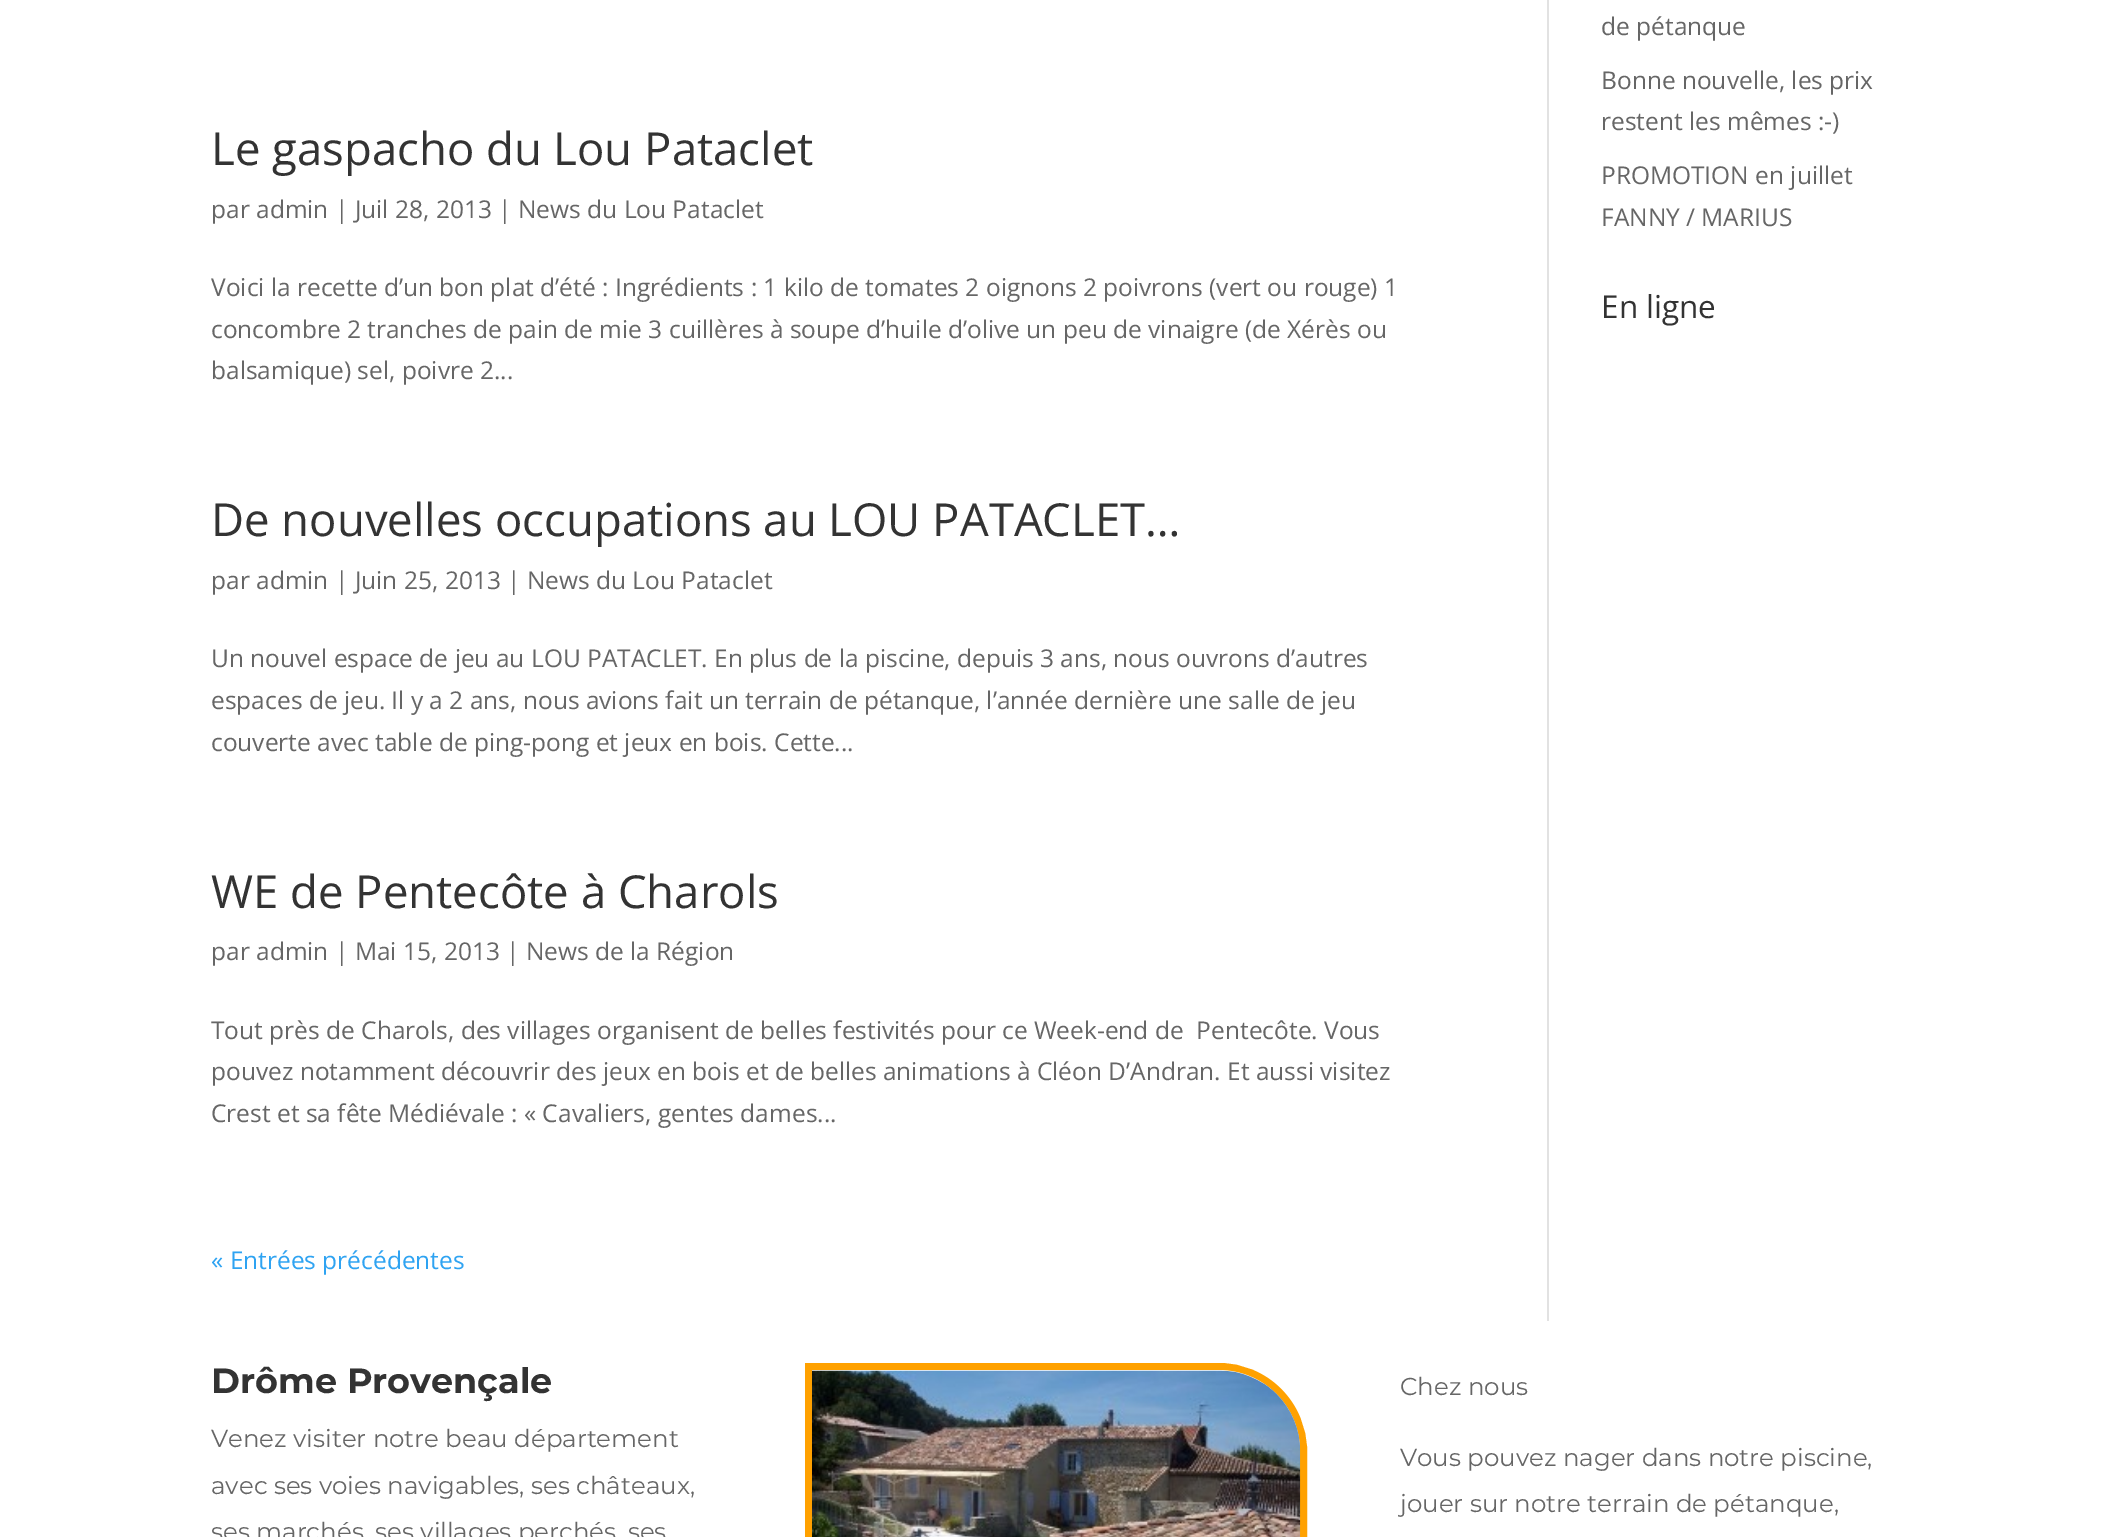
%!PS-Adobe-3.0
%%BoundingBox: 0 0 2112 1537
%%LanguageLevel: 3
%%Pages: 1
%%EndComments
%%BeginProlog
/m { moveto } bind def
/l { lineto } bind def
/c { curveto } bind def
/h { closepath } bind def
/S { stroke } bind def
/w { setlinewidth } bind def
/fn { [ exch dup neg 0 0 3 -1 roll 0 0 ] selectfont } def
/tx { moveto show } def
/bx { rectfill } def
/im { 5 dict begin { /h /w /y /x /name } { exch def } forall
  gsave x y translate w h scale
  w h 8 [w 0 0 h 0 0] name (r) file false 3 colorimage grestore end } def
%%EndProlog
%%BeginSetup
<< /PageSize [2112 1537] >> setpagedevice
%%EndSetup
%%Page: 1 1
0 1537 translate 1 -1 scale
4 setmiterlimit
1 setgray
0 0 2112 1537 bx
0.886 setgray
1547 0 2 1321 bx
/OpenSans-Regular 45.5 fn
0.2 setgray
(Le gaspacho du Lou Pataclet) 211 165 tx
/OpenSans-Regular 24.5 fn
0.4 setgray
(par admin | Juil 28, 2013 | News du Lou Pataclet) 211 218 tx
(Voici la recette d’un bon plat d’été : Ingrédients : 1 kilo de tomates 2 oignons 2 poivrons \(vert ou rouge\) 1) 211 296 tx
(concombre 2 tranches de pain de mie 3 cuillères à soupe d’huile d’olive un peu de vinaigre \(de Xérès ou) 211 338 tx
(balsamique\) sel, poivre 2...) 211 379 tx
/OpenSans-Regular 45.5 fn
0.2 setgray
(De nouvelles occupations au LOU PATACLET…) 211 536 tx
/OpenSans-Regular 24.5 fn
0.4 setgray
(par admin | Juin 25, 2013 | News du Lou Pataclet) 211 589 tx
(Un nouvel espace de jeu au LOU PATACLET. En plus de la piscine, depuis 3 ans, nous ouvrons d’autres) 211 667 tx
(espaces de jeu. Il y a 2 ans, nous avions fait un terrain de pétanque, l’année dernière une salle de jeu) 211 709 tx
(couverte avec table de ping-pong et jeux en bois. Cette...) 211 751 tx
/OpenSans-Regular 45.5 fn
0.2 setgray
(WE de Pentecôte à Charols) 211 908 tx
/OpenSans-Regular 24.5 fn
0.4 setgray
(par admin | Mai 15, 2013 | News de la Région) 211 960 tx
(Tout près de Charols, des villages organisent de belles festivités pour ce Week-end de  Pentecôte. Vous) 211 1039 tx
(pouvez notamment découvrir des jeux en bois et de belles animations à Cléon D’Andran. Et aussi visitez) 211 1080 tx
(Crest et sa fête Médiévale : « Cavaliers, gentes dames...) 211 1122 tx
0.18 0.639 0.949 setrgbcolor
(« Entrées précédentes) 211 1269 tx
0.4 setgray
(de pétanque) 1601 35 tx
(Bonne nouvelle, les prix) 1601 89 tx
(restent les mêmes :-\)) 1601 130 tx
(PROMOTION en juillet) 1601 184 tx
(FANNY / MARIUS) 1601 226 tx
/OpenSans-Regular 31.5 fn
0.2 setgray
(En ligne) 1601 318 tx
/Montserrat-Thin 35 fn
(Drôme Provençale) 211 1393 tx
/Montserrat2-Thin 24.5 fn
0.4 setgray
(Venez visiter notre beau département) 211 1447 tx
(avec ses voies navigables, ses châteaux,) 211 1494 tx
(ses marchés, ses villages perchés, ses) 211 1540 tx
1 0.631 0 setrgbcolor
7 w
808.5 1366.5 m 1219 1366.5 l 1265.5 1366.5 1303.5 1404.5 1303.5 1451 c 1303.5 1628.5 l 893 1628.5 l 846.5 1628.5 808.5 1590.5 808.5 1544 c h S
(image0.raw) 812 1370 489 167 im
0.4 setgray
(Chez nous) 1400 1395 tx
(Vous pouvez nager dans notre piscine,) 1400 1466 tx
(jouer sur notre terrain de pétanque,) 1400 1512 tx
showpage
%%EOF
